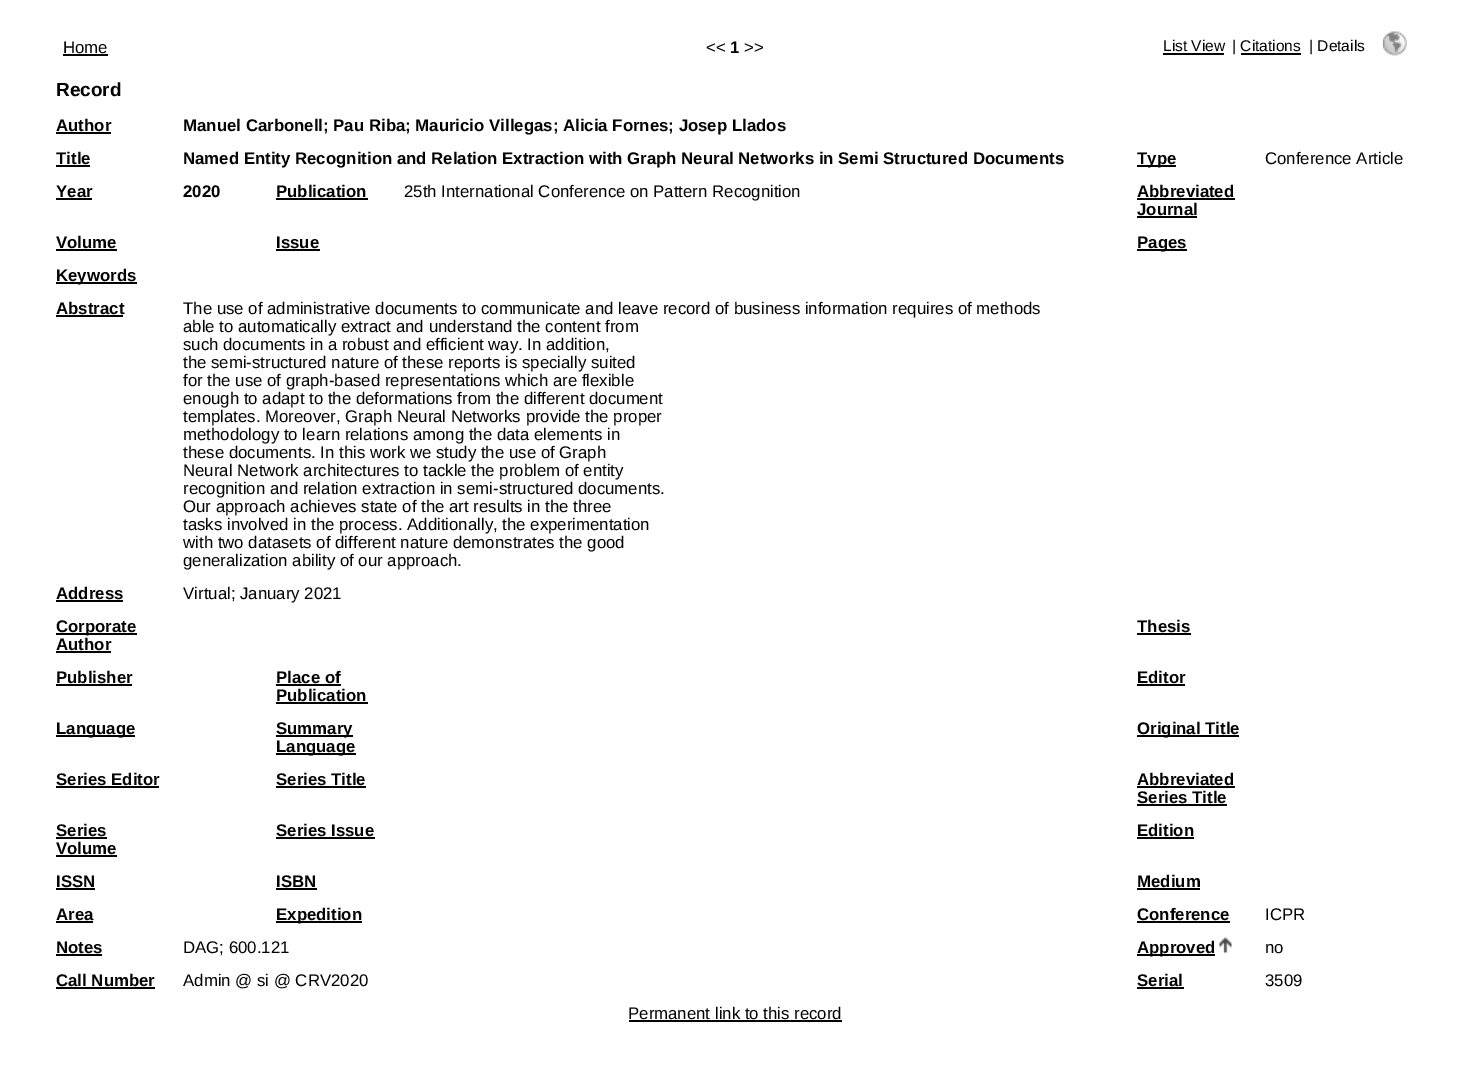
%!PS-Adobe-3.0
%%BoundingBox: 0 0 1469 1081
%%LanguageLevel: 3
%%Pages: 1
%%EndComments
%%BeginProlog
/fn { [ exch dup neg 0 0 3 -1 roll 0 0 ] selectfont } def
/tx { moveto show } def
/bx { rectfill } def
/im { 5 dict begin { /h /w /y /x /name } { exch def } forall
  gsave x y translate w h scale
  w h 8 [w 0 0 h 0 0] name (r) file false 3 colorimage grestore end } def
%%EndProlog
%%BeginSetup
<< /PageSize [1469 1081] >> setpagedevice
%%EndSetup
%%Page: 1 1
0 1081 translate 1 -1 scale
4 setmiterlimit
1 setgray
0 0 1469 1081 bx
/LiberationSans-Regular 16.8 fn
0 setgray
(Home) 63 53 tx
63 54 45 2 bx
(<<) 706 53 tx
/LiberationSans-Bold 16.8 fn
(1) 730 53 tx
/LiberationSans-Regular 16.8 fn
(>>) 744 53 tx
/LiberationSans-Regular 15.5 fn
(List View) 1163 51 tx
1163 53 61 2 bx
(| Citations) 1232 51 tx
1241 53 60 2 bx
(| Details) 1309 51 tx
(image0.raw) 1383 31 24 25 im
/LiberationSans-Bold 19 fn
(Record) 56 96 tx
/LiberationSans-Bold 16.8 fn
(Author) 56 131 tx
56 132 55 2 bx
(Manuel Carbonell; Pau Riba; Mauricio Villegas; Alicia Fornes; Josep Llados) 183 131 tx
(Title) 56 164 tx
56 165 34 2 bx
(Named Entity Recognition and Relation Extraction with Graph Neural Networks in Semi Structured Documents) 183 164 tx
1137 165 39 2 bx
(Type) 1137 164 tx
/LiberationSans-Regular 16.8 fn
(Conference Article) 1265 164 tx
/LiberationSans-Bold 16.8 fn
(Year) 56 197 tx
56 198 36 2 bx
(2020) 183 197 tx
(Publication) 276 197 tx
276 198 92 2 bx
/LiberationSans-Regular 16.8 fn
(25th International Conference on Pattern Recognition) 404 197 tx
/LiberationSans-Bold 16.8 fn
(Abbreviated) 1137 197 tx
1137 198 98 2 bx
(Journal) 1137 215 tx
1137 216 60 2 bx
(Volume) 56 248 tx
56 249 61 2 bx
(Issue) 276 248 tx
276 249 44 2 bx
1137 249 50 2 bx
(Pages) 1137 248 tx
56 282 81 2 bx
(Keywords) 56 281 tx
(Abstract) 56 314 tx
56 315 67 2 bx
/LiberationSans-Regular 16.8 fn
(The use of administrative documents to communicate and leave record of business information requires of methods) 183 314 tx
(able to automatically extract and understand the content from) 183 332 tx
(such documents in a robust and efficient way. In addition,) 183 350 tx
(the semi-structured nature of these reports is specially suited) 183 368 tx
(for the use of graph-based representations which are flexible) 183 386 tx
(enough to adapt to the deformations from the different document) 183 404 tx
(templates. Moreover, Graph Neural Networks provide the proper) 183 422 tx
(methodology to learn relations among the data elements in) 183 440 tx
(these documents. In this work we study the use of Graph) 183 458 tx
(Neural Network architectures to tackle the problem of entity) 183 476 tx
(recognition and relation extraction in semi-structured documents.) 183 494 tx
(Our approach achieves state of the art results in the three) 183 512 tx
(tasks involved in the process. Additionally, the experimentation) 183 530 tx
(with two datasets of different nature demonstrates the good) 183 548 tx
(generalization ability of our approach.) 183 566 tx
/LiberationSans-Bold 16.8 fn
(Address) 56 599 tx
56 600 67 2 bx
/LiberationSans-Regular 16.8 fn
(Virtual; January 2021) 183 599 tx
56 633 81 2 bx
/LiberationSans-Bold 16.8 fn
(Corporate) 56 632 tx
(Author) 56 650 tx
56 651 55 2 bx
(Thesis) 1137 632 tx
1137 633 54 2 bx
(Publisher) 56 683 tx
56 684 76 2 bx
(Place of) 276 683 tx
276 684 65 2 bx
(Publication) 276 701 tx
276 702 92 2 bx
(Editor) 1137 683 tx
1137 684 48 2 bx
56 735 79 2 bx
(Language) 56 734 tx
276 735 77 2 bx
(Summary) 276 734 tx
276 753 80 2 bx
(Language) 276 752 tx
1137 735 102 2 bx
(Original Title) 1137 734 tx
(Series Editor) 56 785 tx
56 786 103 2 bx
(Series Title) 276 785 tx
276 786 90 2 bx
(Abbreviated) 1137 785 tx
1137 786 98 2 bx
(Series Title) 1137 803 tx
1137 804 90 2 bx
(Series) 56 836 tx
56 837 51 2 bx
(Volume) 56 854 tx
56 855 61 2 bx
(Series Issue) 276 836 tx
276 837 99 2 bx
(Edition) 1137 836 tx
1137 837 57 2 bx
(ISSN) 56 887 tx
56 888 39 2 bx
(ISBN) 276 887 tx
276 888 41 2 bx
(Medium) 1137 887 tx
1137 888 63 2 bx
(Area) 56 920 tx
56 921 37 2 bx
276 921 86 2 bx
(Expedition) 276 920 tx
(Conference) 1137 920 tx
1137 921 93 2 bx
/LiberationSans-Regular 16.8 fn
(ICPR) 1265 920 tx
/LiberationSans-Bold 16.8 fn
(Notes) 56 953 tx
56 954 46 2 bx
/LiberationSans-Regular 16.8 fn
(DAG; 600.121) 183 953 tx
1137 954 78 2 bx
/LiberationSans-Bold 16.8 fn
(Approved) 1137 953 tx
(image1.raw) 1219 937 13 16 im
/LiberationSans-Regular 16.8 fn
(no) 1265 953 tx
/LiberationSans-Bold 16.8 fn
(Call Number) 56 986 tx
56 987 99 2 bx
/LiberationSans-Regular 16.8 fn
(Admin @ si @ CRV2020) 183 986 tx
/LiberationSans-Bold 16.8 fn
(Serial) 1137 986 tx
1137 987 47 2 bx
/LiberationSans-Regular 16.8 fn
(3509) 1265 986 tx
(Permanent link to this record) 628 1019 tx
629 1020 213 2 bx
showpage
%%EOF
